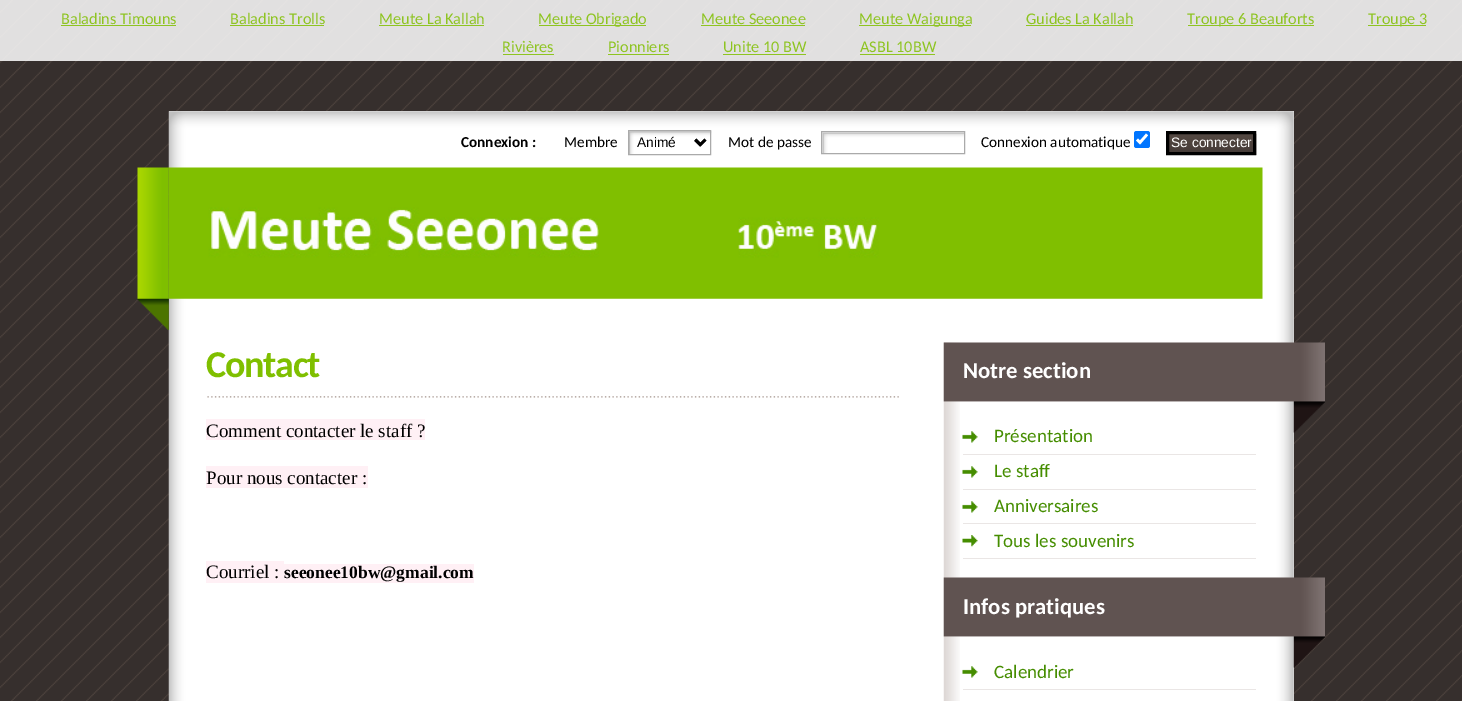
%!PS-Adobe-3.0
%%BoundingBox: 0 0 1462 701
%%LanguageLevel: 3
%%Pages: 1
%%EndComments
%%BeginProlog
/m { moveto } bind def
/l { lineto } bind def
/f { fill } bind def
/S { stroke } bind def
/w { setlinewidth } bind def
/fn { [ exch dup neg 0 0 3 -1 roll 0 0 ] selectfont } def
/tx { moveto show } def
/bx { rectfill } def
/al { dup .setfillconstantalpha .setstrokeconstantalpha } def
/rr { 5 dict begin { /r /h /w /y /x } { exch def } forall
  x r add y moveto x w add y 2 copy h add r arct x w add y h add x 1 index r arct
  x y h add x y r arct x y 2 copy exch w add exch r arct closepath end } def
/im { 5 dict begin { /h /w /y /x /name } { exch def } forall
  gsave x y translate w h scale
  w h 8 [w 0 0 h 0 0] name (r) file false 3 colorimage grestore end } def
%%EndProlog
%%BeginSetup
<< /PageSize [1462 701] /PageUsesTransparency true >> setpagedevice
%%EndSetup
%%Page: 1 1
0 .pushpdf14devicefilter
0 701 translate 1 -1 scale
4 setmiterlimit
1 setgray
0 0 1462 701 bx
(image0.raw) 0 0 1462 701 im
0.85 al
0 0 1462 61 bx
/Carlito-Regular 16.25 fn
1 al
0.557 0.769 0.133 setrgbcolor
(Baladins Timouns) 61 24 tx
0.85 al
0.498 0.749 0 setrgbcolor
61 25 115 1 bx
1 al
0.557 0.769 0.133 setrgbcolor
(Baladins Trolls) 230 24 tx
0.85 al
0.498 0.749 0 setrgbcolor
230 25 94 1 bx
1 al
0.557 0.769 0.133 setrgbcolor
(Meute La Kallah) 379 24 tx
0.85 al
0.498 0.749 0 setrgbcolor
379 25 105 1 bx
539 25 107 1 bx
1 al
0.557 0.769 0.133 setrgbcolor
(Meute Obrigado) 538 24 tx
(Meute Seeonee) 701 24 tx
0.85 al
0.498 0.749 0 setrgbcolor
701 25 104 1 bx
859 25 112 1 bx
1 al
0.557 0.769 0.133 setrgbcolor
(Meute Waigunga) 859 24 tx
(Guides La Kallah) 1026 24 tx
0.85 al
0.498 0.749 0 setrgbcolor
1026 25 107 1 bx
1188 25 126 1 bx
1 al
0.557 0.769 0.133 setrgbcolor
(Troupe 6 Beauforts) 1187 24 tx
0.85 al
0.498 0.749 0 setrgbcolor
1368 25 58 1 bx
1 al
0.557 0.769 0.133 setrgbcolor
(Troupe 3) 1368 24 tx
(Rivières) 502 52 tx
0.85 al
0.498 0.749 0 setrgbcolor
503 54 51 1 bx
1 al
0.557 0.769 0.133 setrgbcolor
(Pionniers) 608 52 tx
0.85 al
0.498 0.749 0 setrgbcolor
608 54 61 1 bx
1 al
0.557 0.769 0.133 setrgbcolor
(Unite 10 BW) 723 52 tx
0.85 al
0.498 0.749 0 setrgbcolor
723 54 83 1 bx
1 al
0.557 0.769 0.133 setrgbcolor
(ASBL 10BW) 860 52 tx
0.85 al
0.498 0.749 0 setrgbcolor
860 54 75 1 bx
1 al
1 setgray
169 111 1125 19 bx
(image1.raw) 168 111 1126 19 im
(image2.raw) 168 130 1126 571 im
/Carlito-Bold 15.25 fn
0 setgray
(Connexion :) 461 147 tx
/Carlito-Regular 15.25 fn
(Membre) 564 147 tx
(image3.raw) 629 131 83 24 im
0.667 setgray
628.5 130.5 82 24 rectstroke
0 setgray
2.5 w
695.5 139.5 m 700.5 144.5 l 705.5 139.5 l S
/LiberationSans-Regular 13.75 fn
(Animé) 637 147 tx
/Carlito-Regular 15.25 fn
(Mot de passe) 728 147 tx
(image4.raw) 822 132 142 21 im
0.667 setgray
1 w
821.5 131.5 143 22 rectstroke
0 setgray
(Connexion automatique) 981 147 tx
0 0.459 1 setrgbcolor
1134 131 16 17 2.5 rr f
1 setgray
2.6 w
1137 139.5 m 1140 142.5 l 1147 134.5 l S
(image5.raw) 1169 133 88 22 im
0 setgray
3 w
1167.5 132.5 87 21 rectstroke
/LiberationSans-Regular 13.75 fn
1 setgray
(Se connecter) 1171 147 tx
(image6.raw) 137 167 32 163 im
(image7.raw) 168 167 1095 132 im
(image8.raw) 207 396 692 2 im
/Carlito-Bold 38 fn
0.498 0.749 0 setrgbcolor
206 377 m -1.25 0 (Contact) ashow
1 0.941 0.961 setrgbcolor
206 419 219 21 bx
/LiberationSerif-Regular 19 fn
0 setgray
(Comment contacter le staff ?) 206 437 tx
1 0.941 0.961 setrgbcolor
206 466 162 22 bx
0 setgray
(Pour nous contacter :) 206 484 tx
1 0.941 0.961 setrgbcolor
206 561 78 22 bx
0 setgray
(Courriel :) 206 578 tx
1 0.941 0.961 setrgbcolor
284 564 190 19 bx
/LiberationSerif-Bold 17.5 fn
0 setgray
(seeonee10bw@gmail.com) 284 578 tx
(image9.raw) 943 342 17 359 im
(image10.raw) 943 342 382 91 im
/Carlito-Bold 22.75 fn
1 setgray
(Notre section) 963 378 tx
(image11.raw) 962 431 16 12 im
0.918 0.902 0.898 setrgbcolor
963 454 293 1 bx
/Carlito-Regular 19 fn
0.271 0.553 0 setrgbcolor
(Présentation) 994 442 tx
(image11.raw) 962 466 16 12 im
0.918 0.902 0.898 setrgbcolor
963 489 293 1 bx
0.271 0.553 0 setrgbcolor
(Le staff) 994 477 tx
(image11.raw) 962 501 16 12 im
0.918 0.902 0.898 setrgbcolor
963 523 293 1 bx
0.271 0.553 0 setrgbcolor
(Anniversaires) 994 512 tx
(image12.raw) 962 535 16 12 im
0.918 0.902 0.898 setrgbcolor
963 558 293 1 bx
0.271 0.553 0 setrgbcolor
(Tous les souvenirs) 994 547 tx
(image13.raw) 943 577 382 91 im
/Carlito-Bold 22.75 fn
1 setgray
(Infos pratiques) 963 614 tx
(image11.raw) 962 666 16 12 im
0.918 0.902 0.898 setrgbcolor
963 689 293 1 bx
/Carlito-Regular 19 fn
0.271 0.553 0 setrgbcolor
(Calendrier) 994 678 tx
.poppdf14devicefilter showpage
%%EOF
